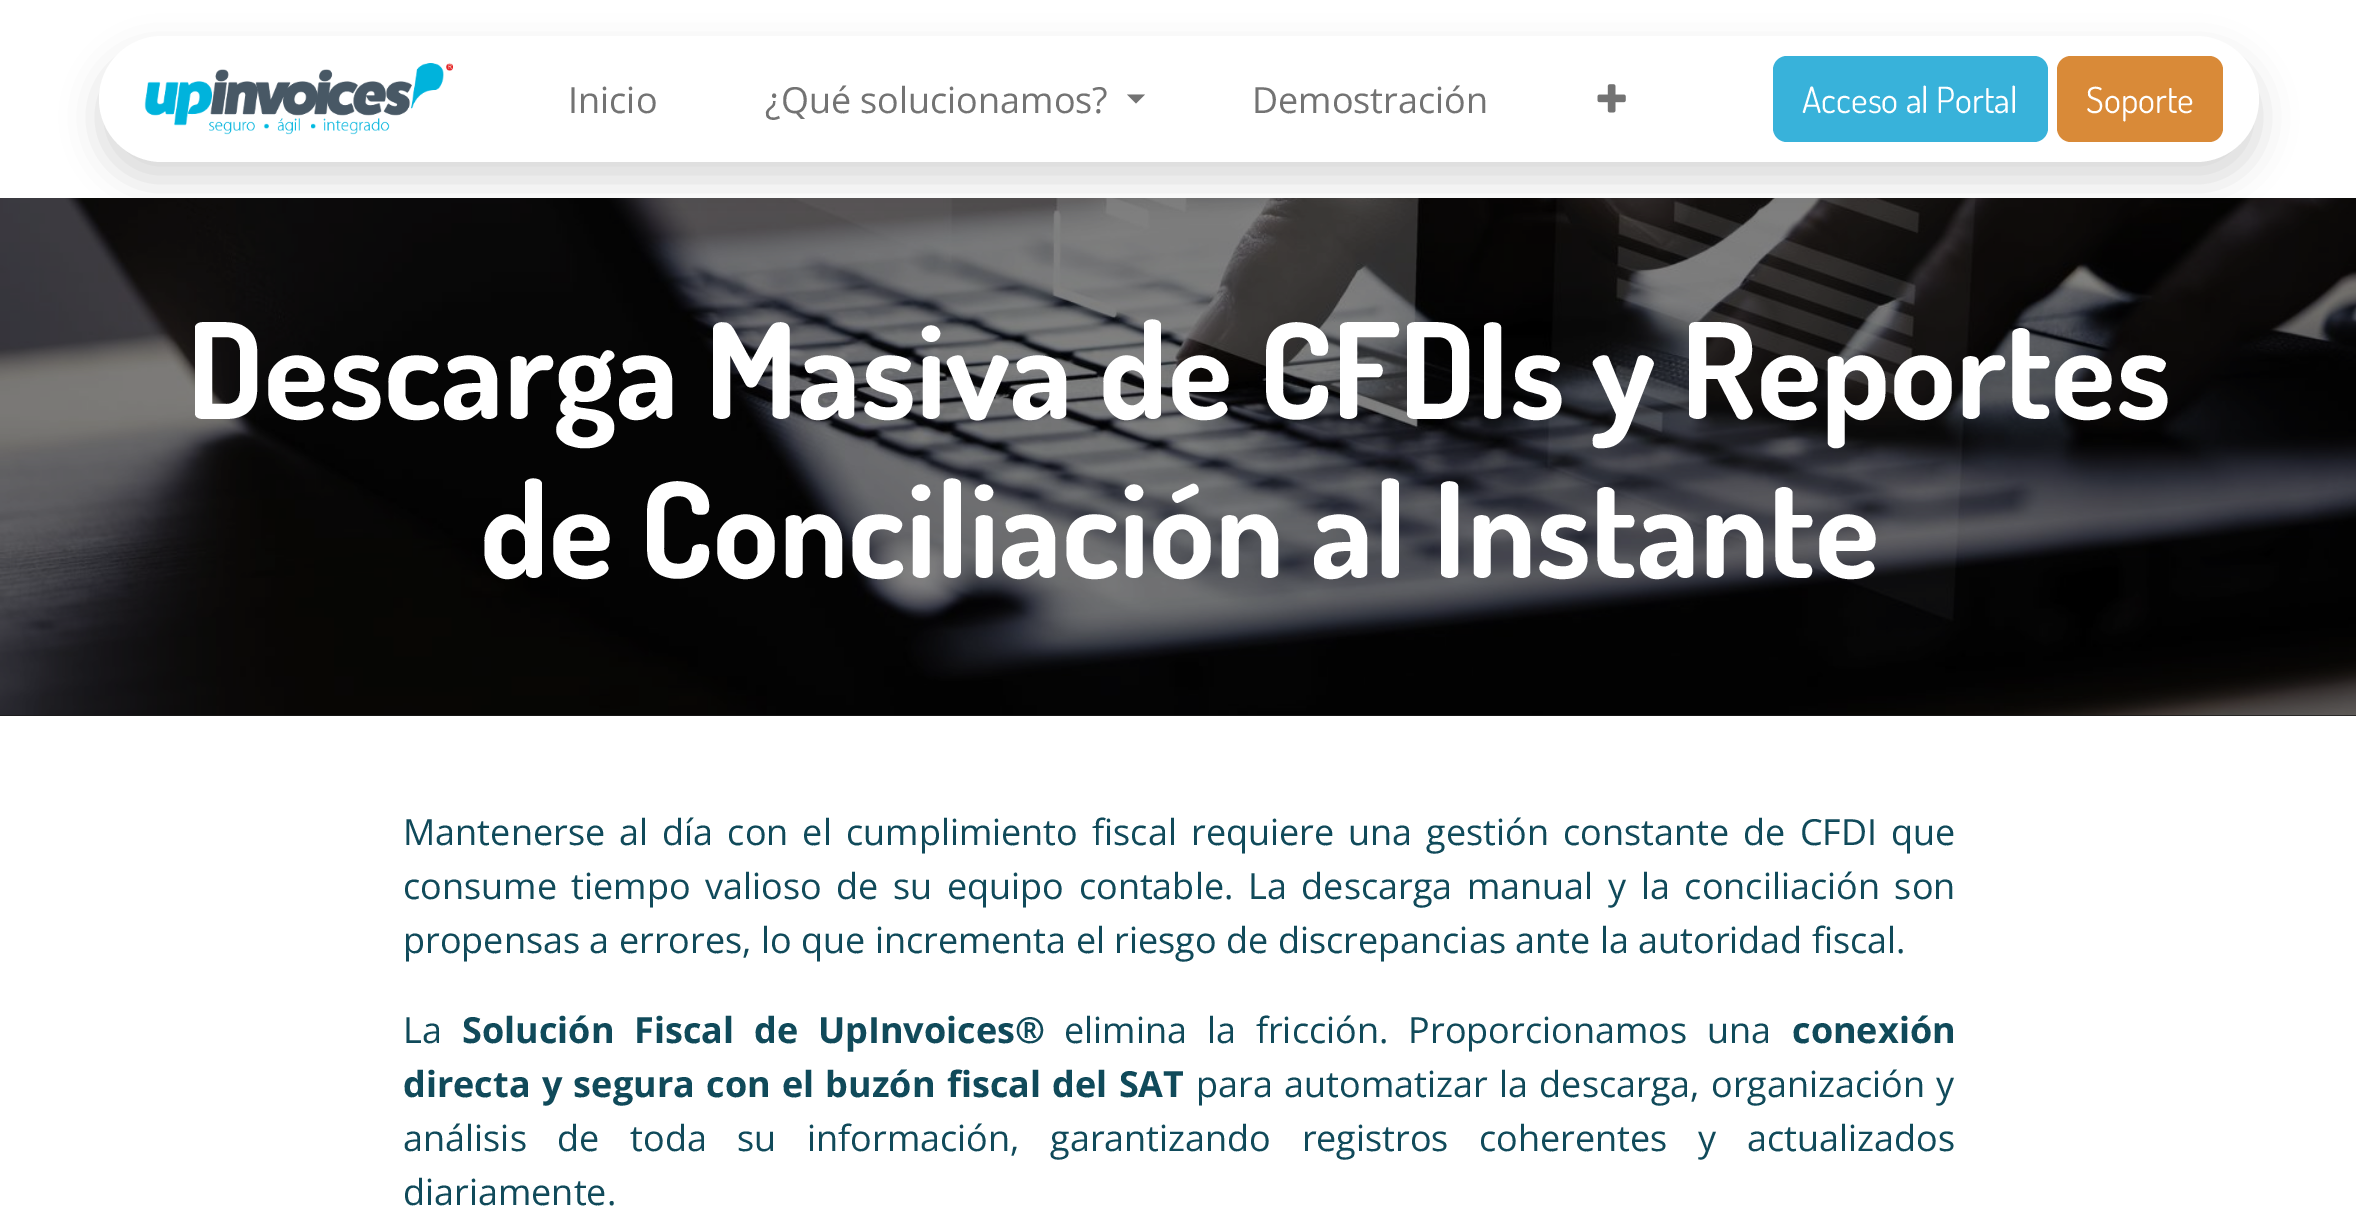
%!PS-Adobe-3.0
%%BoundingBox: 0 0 2356 1218
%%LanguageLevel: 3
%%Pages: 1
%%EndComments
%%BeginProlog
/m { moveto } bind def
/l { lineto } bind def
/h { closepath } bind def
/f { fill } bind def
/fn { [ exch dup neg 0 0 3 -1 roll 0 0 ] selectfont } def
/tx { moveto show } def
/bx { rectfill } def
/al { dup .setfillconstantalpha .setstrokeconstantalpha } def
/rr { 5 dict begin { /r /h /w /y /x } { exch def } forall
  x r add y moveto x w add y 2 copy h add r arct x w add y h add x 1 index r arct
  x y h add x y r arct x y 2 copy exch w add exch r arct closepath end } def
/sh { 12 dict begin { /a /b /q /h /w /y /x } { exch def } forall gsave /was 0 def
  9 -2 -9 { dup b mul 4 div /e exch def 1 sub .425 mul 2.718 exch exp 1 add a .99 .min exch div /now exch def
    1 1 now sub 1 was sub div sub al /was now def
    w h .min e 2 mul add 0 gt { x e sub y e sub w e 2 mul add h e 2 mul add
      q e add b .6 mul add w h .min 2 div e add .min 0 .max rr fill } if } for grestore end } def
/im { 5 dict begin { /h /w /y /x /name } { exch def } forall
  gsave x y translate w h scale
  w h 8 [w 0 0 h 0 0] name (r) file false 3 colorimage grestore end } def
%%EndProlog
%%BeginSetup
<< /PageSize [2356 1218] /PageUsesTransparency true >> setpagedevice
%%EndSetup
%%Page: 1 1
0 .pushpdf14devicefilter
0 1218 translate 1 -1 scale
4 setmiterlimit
1 setgray
0 0 2356 1218 bx
0.102 setgray
0 715 2356 1 bx
(image2.raw) 0 198 2356 518 im
0 setgray
99 54 2160 126 63 18 0.15 sh
1 setgray
99 36 2160 126 63 rr f
(image0.raw) 144 63 309 72 im
/OpenSans-Regular 36 fn
0.451 setgray
(Inicio) 568 113 tx
(¿Qué solucionamos?) 765 113 tx
1127 94.5 m 1145 94.5 l 1136 103.5 l h f
(Demostración) 1252 113 tx
(image1.raw) 1597 84 29 29 im
0.22 0.698 0.855 setrgbcolor
1773 56 275 86 14 rr f
/Dosis-Regular 36 fn
1 setgray
(Acceso al Portal) 1802 113 tx
0.851 0.541 0.22 setrgbcolor
2057 56 166 86 14 rr f
1 setgray
(Soporte) 2086 113 tx
/Dosis-Bold 132.75 fn
(Descarga Masiva de CFDIs y Reportes) 187 419 tx
(de Conciliación al Instante) 480 578 tx
/OpenSans-Regular 36 fn
0.063 0.29 0.353 setrgbcolor
403 845 m 4.75 0 32 (Mantenerse al día con el cumplimiento fiscal requiere una gestión constante de CFDI que) widthshow
403 899 m 5.25 0 32 (consume tiempo valioso de su equipo contable. La descarga manual y la conciliación son) widthshow
(propensas a errores, lo que incrementa el riesgo de discrepancias ante la autoridad fiscal.) 403 953 tx
(La) 403 1043 tx
/OpenSans-Bold 36 fn
462 1043 m 10.5 0 32 (Solución Fiscal de UpInvoices®) widthshow
/OpenSans-Regular 36 fn
1064 1043 m 10.5 0 32 (elimina la fricción. Proporcionamos una) widthshow
/OpenSans-Bold 36 fn
(conexión) 1792 1043 tx
403 1097 m 2 0 32 (directa y segura con el buzón fiscal del SAT) widthshow
/OpenSans-Regular 36 fn
1196 1097 m 2 0 32 (para automatizar la descarga, organización y) widthshow
403 1151 m 21.25 0 32 (análisis de toda su información, garantizando registros coherentes y actualizados) widthshow
(diariamente.) 403 1205 tx
.poppdf14devicefilter showpage
%%EOF
